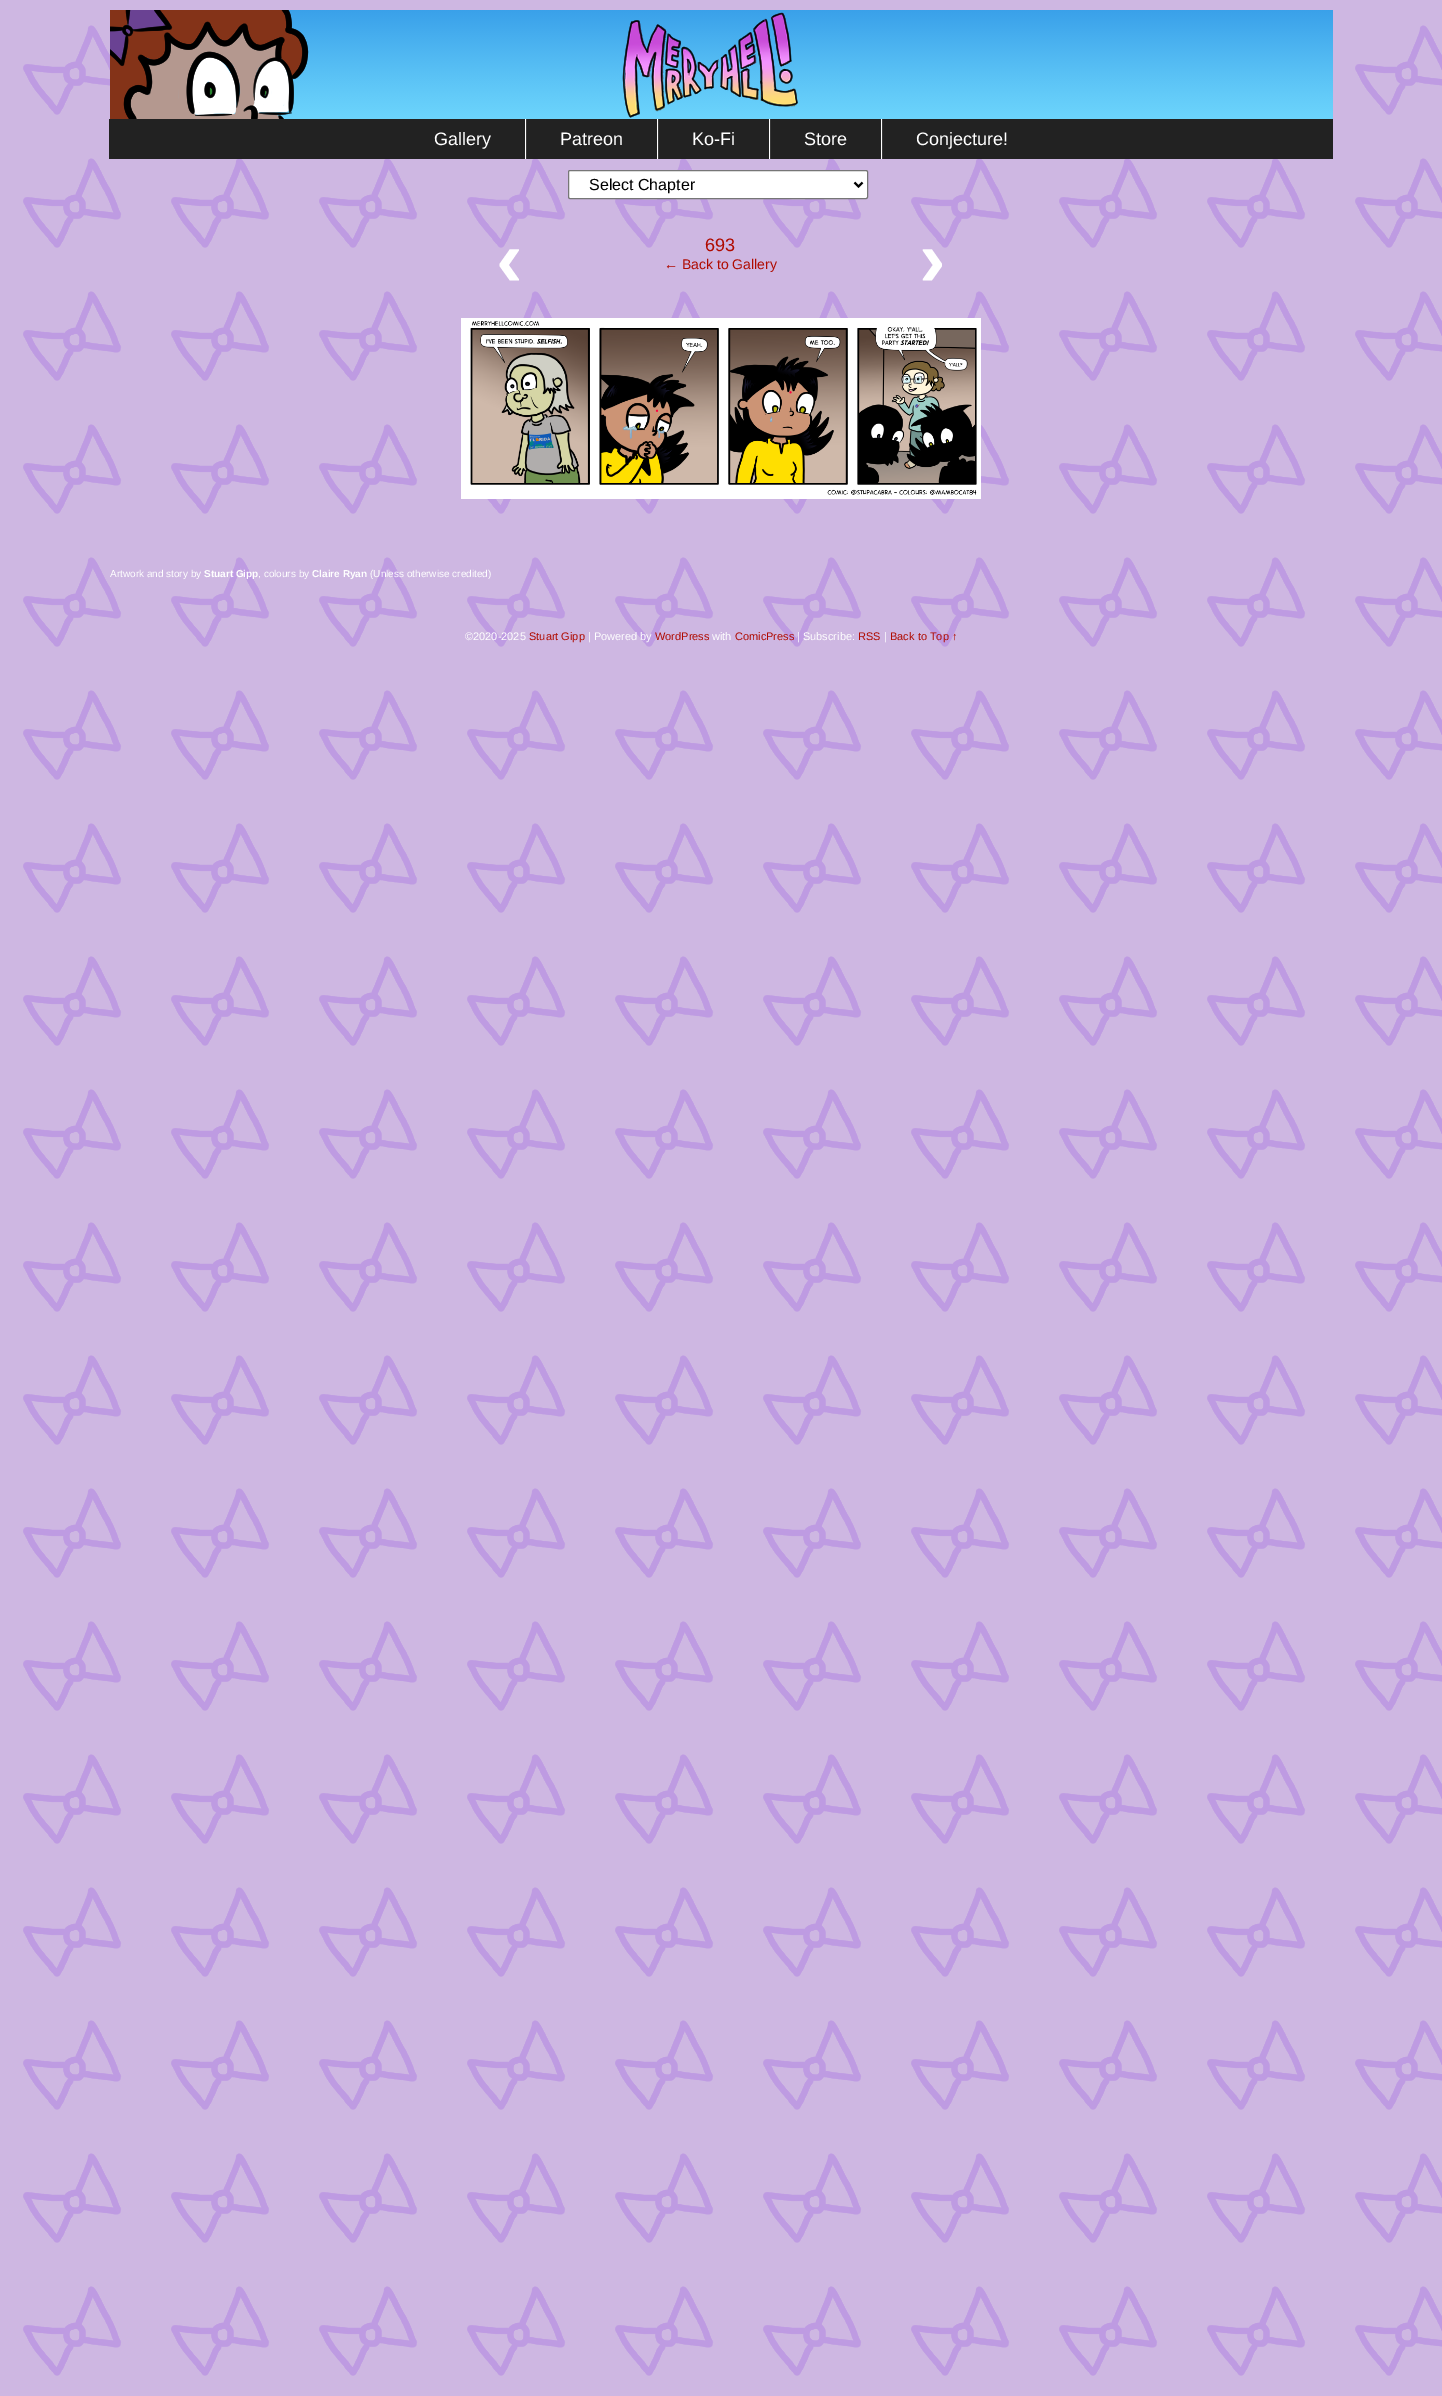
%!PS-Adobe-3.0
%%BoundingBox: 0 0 1442 2396
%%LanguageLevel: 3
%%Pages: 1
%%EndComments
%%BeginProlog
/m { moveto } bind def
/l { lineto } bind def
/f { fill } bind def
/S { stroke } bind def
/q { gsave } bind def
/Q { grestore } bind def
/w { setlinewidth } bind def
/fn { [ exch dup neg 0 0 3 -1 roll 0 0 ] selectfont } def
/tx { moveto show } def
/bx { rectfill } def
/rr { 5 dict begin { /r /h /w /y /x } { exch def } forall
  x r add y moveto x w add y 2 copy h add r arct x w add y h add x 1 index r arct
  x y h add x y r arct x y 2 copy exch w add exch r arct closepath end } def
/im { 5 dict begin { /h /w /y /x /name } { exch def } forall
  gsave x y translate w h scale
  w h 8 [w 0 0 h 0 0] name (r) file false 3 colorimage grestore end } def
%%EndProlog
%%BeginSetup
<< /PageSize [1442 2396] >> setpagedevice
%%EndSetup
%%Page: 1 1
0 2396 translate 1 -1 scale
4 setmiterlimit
1 setgray
0 0 1442 2396 bx
(image0.raw) 0 0 1442 2396 im
(image1.raw) 110 10 1223 109 im
0.133 setgray
109 119 1224 40 bx
/LiberationSans-Regular 18 fn
1 setgray
(Gallery) 434 145 tx
0.22 setgray
526 119 1 40 bx
1 setgray
525 119 1 40 bx
(Patreon) 560 145 tx
0.22 setgray
658 119 1 40 bx
1 setgray
657 119 1 40 bx
(Ko-Fi) 692 145 tx
0.22 setgray
770 119 1 40 bx
1 setgray
769 119 1 40 bx
(Store) 804 145 tx
0.22 setgray
882 119 1 40 bx
1 setgray
881 119 1 40 bx
(Conjecture!) 916 145 tx
568.5 170.5 299 28 1.5 rr q f Q
0.463 setgray
S
0 setgray
2 w
854.5 182.5 m 858.5 186.5 l 862.5 182.5 l S
/LiberationSans-Regular 16 fn
(Select Chapter) 589 190 tx
/LiberationSans-Bold 80 fn
1 setgray
(‹) 496 286 tx
/LiberationSans-Regular 18 fn
0.69 0.043 0 setrgbcolor
(693) 705 251 tx
/LiberationSans-Regular 14 fn
(← Back to Gallery) 664 269 tx
/LiberationSans-Bold 80 fn
1 setgray
(›) 919 286 tx
(image2.raw) 461 318 520 181 im
/LiberationSans-Regular 10 fn
(Artwork and story by) 110 577 tx
/LiberationSans-Bold 10 fn
(Stuart Gipp) 204 577 tx
/LiberationSans-Regular 10 fn
(, colours by) 258 577 tx
/LiberationSans-Bold 10 fn
(Claire Ryan) 312 577 tx
/LiberationSans-Regular 10 fn
(\(Unless otherwise credited\)) 370 577 tx
/LiberationSans-Regular 11 fn
(©2020-2025) 465 640 tx
0.69 0.043 0 setrgbcolor
(Stuart Gipp) 529 640 tx
1 setgray
(| Powered by) 588 640 tx
0.69 0.043 0 setrgbcolor
(WordPress) 655 640 tx
1 setgray
(with) 712 640 tx
0.69 0.043 0 setrgbcolor
(ComicPress) 735 640 tx
1 setgray
(| Subscribe:) 797 640 tx
0.69 0.043 0 setrgbcolor
(RSS) 858 640 tx
1 setgray
(|) 884 640 tx
0.69 0.043 0 setrgbcolor
(Back to Top ↑) 890 640 tx
showpage
%%EOF
